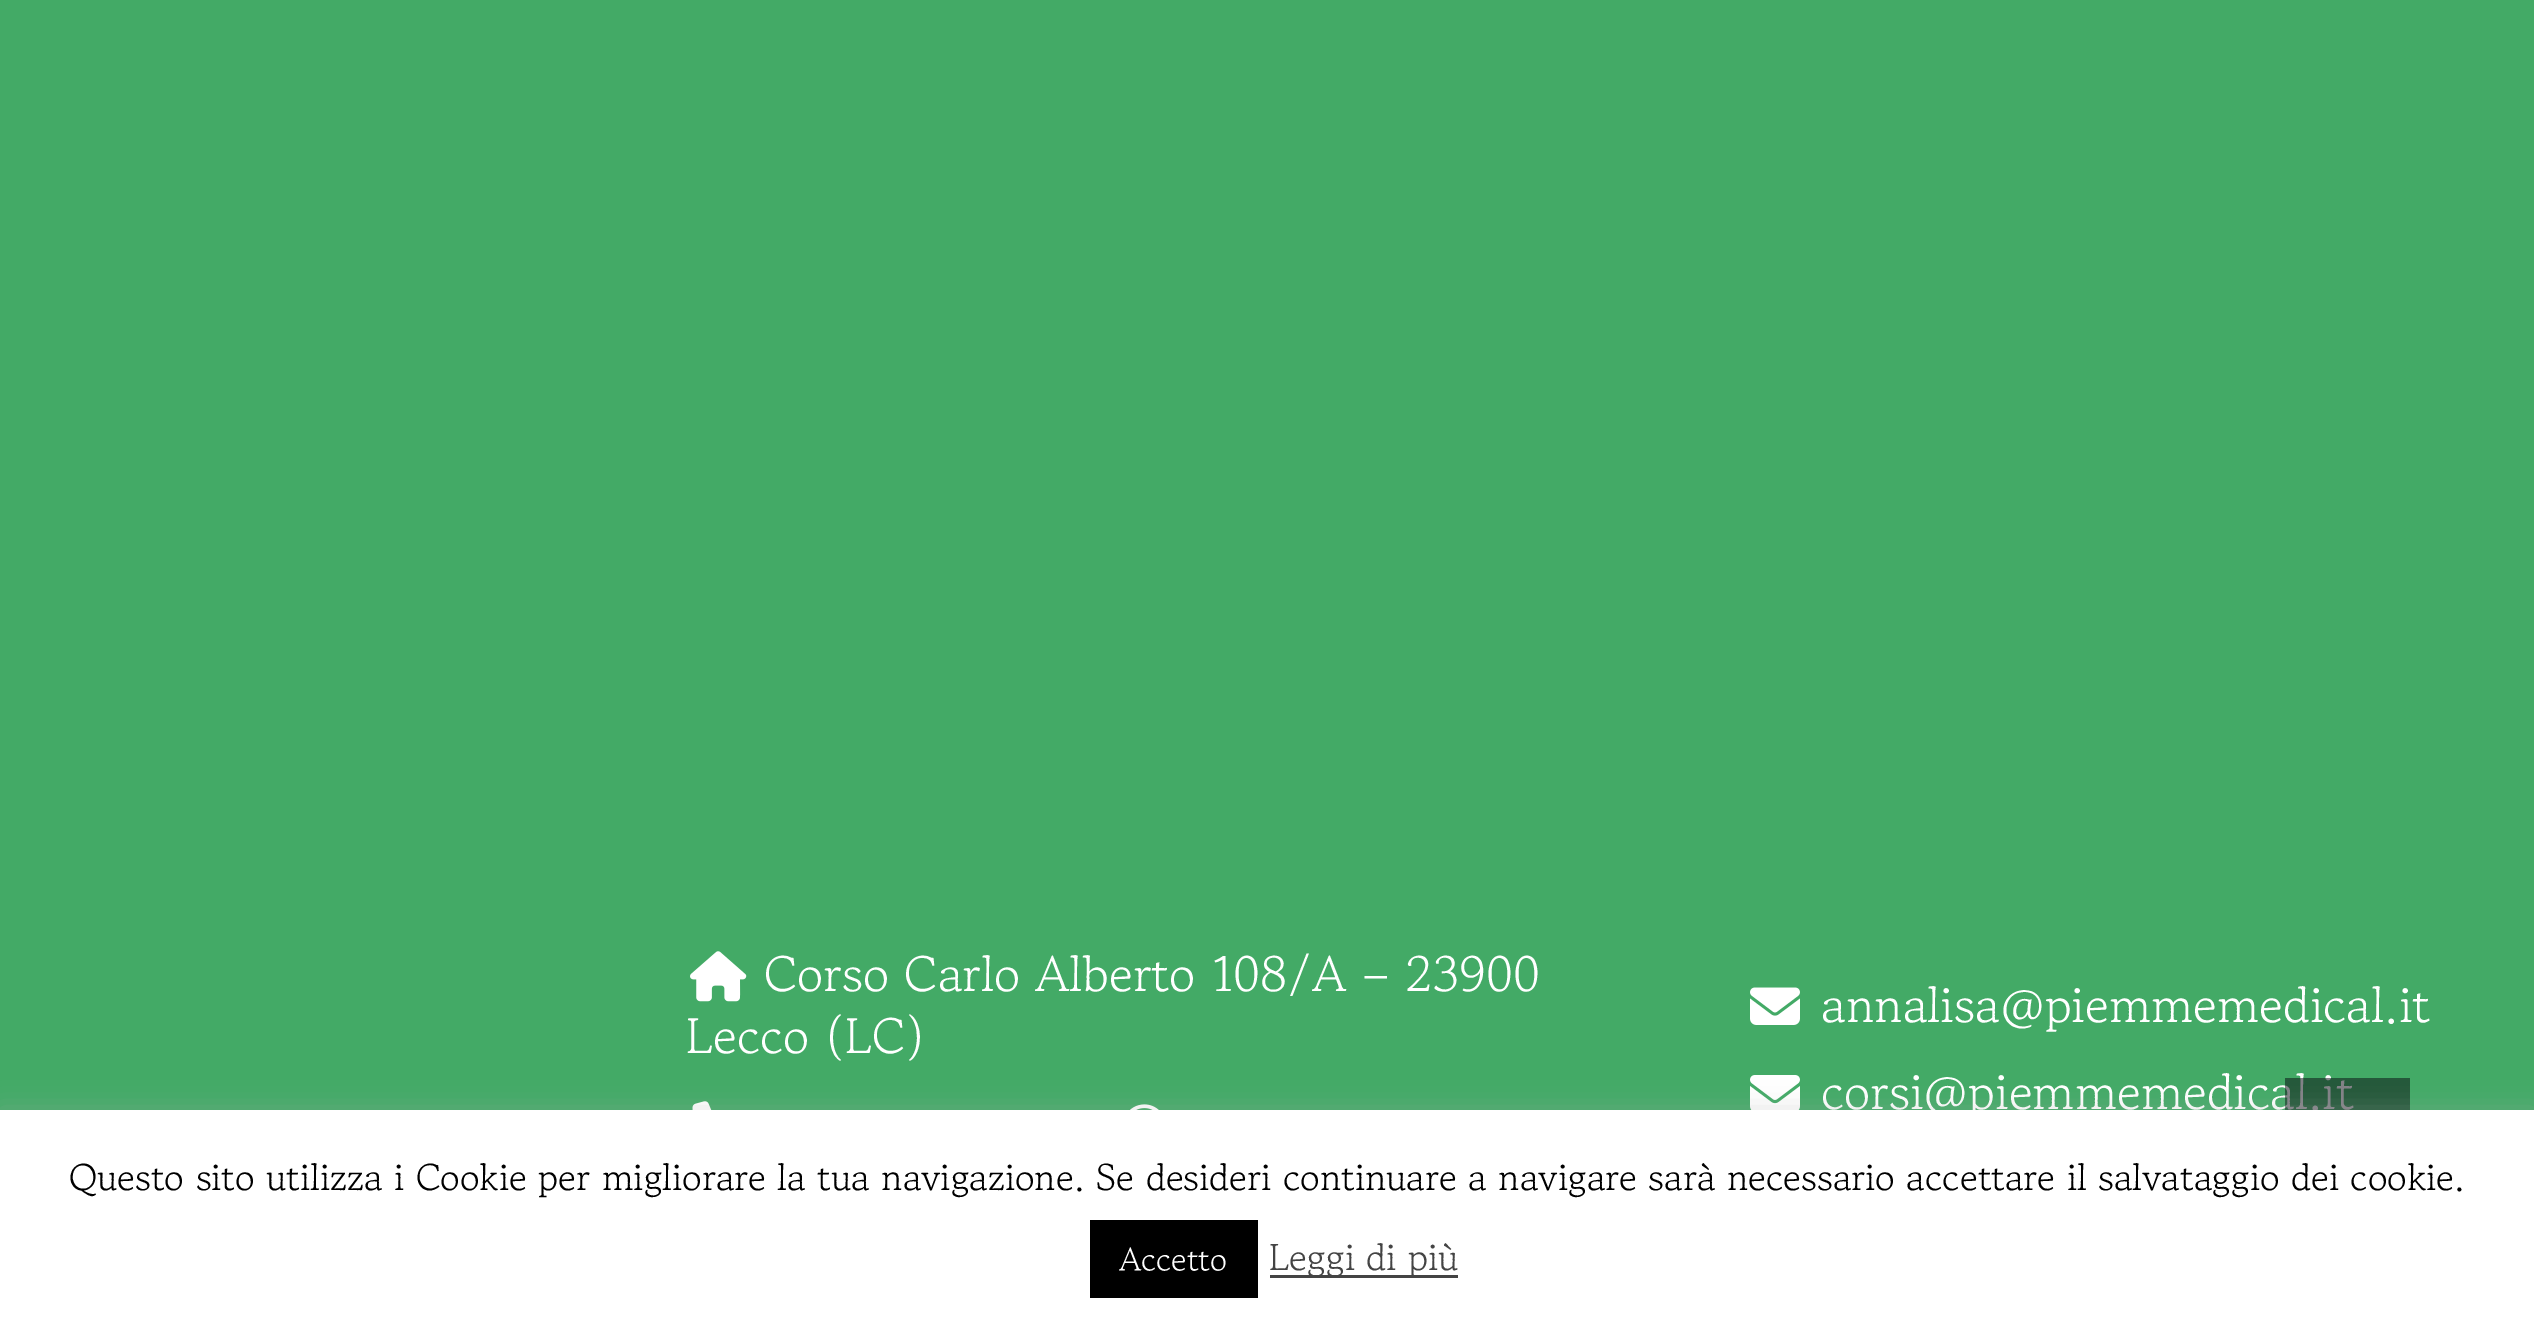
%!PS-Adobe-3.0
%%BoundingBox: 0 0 2534 1327
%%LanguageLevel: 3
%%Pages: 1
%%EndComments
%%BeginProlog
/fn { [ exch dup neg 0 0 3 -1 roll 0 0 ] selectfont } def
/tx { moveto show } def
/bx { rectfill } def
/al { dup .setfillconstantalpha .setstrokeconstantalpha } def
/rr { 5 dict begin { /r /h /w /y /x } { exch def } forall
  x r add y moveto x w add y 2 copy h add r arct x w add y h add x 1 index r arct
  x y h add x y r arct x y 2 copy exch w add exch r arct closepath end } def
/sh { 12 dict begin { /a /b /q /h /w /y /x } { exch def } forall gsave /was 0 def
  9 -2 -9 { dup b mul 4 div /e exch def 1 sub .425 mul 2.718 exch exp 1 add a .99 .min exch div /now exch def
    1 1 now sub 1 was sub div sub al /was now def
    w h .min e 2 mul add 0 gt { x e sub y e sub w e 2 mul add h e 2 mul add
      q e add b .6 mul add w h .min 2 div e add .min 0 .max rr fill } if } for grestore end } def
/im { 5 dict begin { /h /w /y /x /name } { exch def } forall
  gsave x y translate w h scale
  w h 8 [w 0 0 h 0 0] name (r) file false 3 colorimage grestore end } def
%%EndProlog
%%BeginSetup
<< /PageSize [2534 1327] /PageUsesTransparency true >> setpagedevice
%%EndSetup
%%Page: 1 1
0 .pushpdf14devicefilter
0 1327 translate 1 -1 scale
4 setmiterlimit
0.263 0.667 0.4 setrgbcolor
0 0 2534 1327 bx
(image0.raw) 690 951 57 51 im
/GowunBatang-Regular 50 fn
1 setgray
(Corso Carlo Alberto 108/A – 23900) 764 995 tx
(Lecco \(LC\)) 686 1057 tx
(image1.raw) 692 1101 20 9 im
(image2.raw) 1130 1104 29 6 im
(image3.raw) 1750 987 50 38 im
(annalisa@piemmemedical.it) 1821 1026 tx
(image4.raw) 1750 1075 50 35 im
(corsi@piemmemedical.it) 1821 1113 tx
0.5 al
0.024 0.024 0.059 setrgbcolor
2285 1078 125 32 bx
1 al
0.675 0.671 0.671 setrgbcolor
0 1108 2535 217 0 12.5 0.3 sh
1 setgray
0 1110 2534 217 bx
/GowunBatang-Regular 37.5 fn
0 setgray
(Questo sito utilizza i Cookie per migliorare la tua navigazione. Se desideri continuare a navigare sarà necessario accettare il salvataggio dei cookie.) 69 1193 tx
1090 1220 168 78 bx
/GowunBatang-Regular 32.5 fn
1 setgray
(Accetto) 1119 1273 tx
0.267 setgray
1270 1275 188 3 bx
/GowunBatang-Regular 37.5 fn
(Leggi di più) 1269 1273 tx
.poppdf14devicefilter showpage
%%EOF
